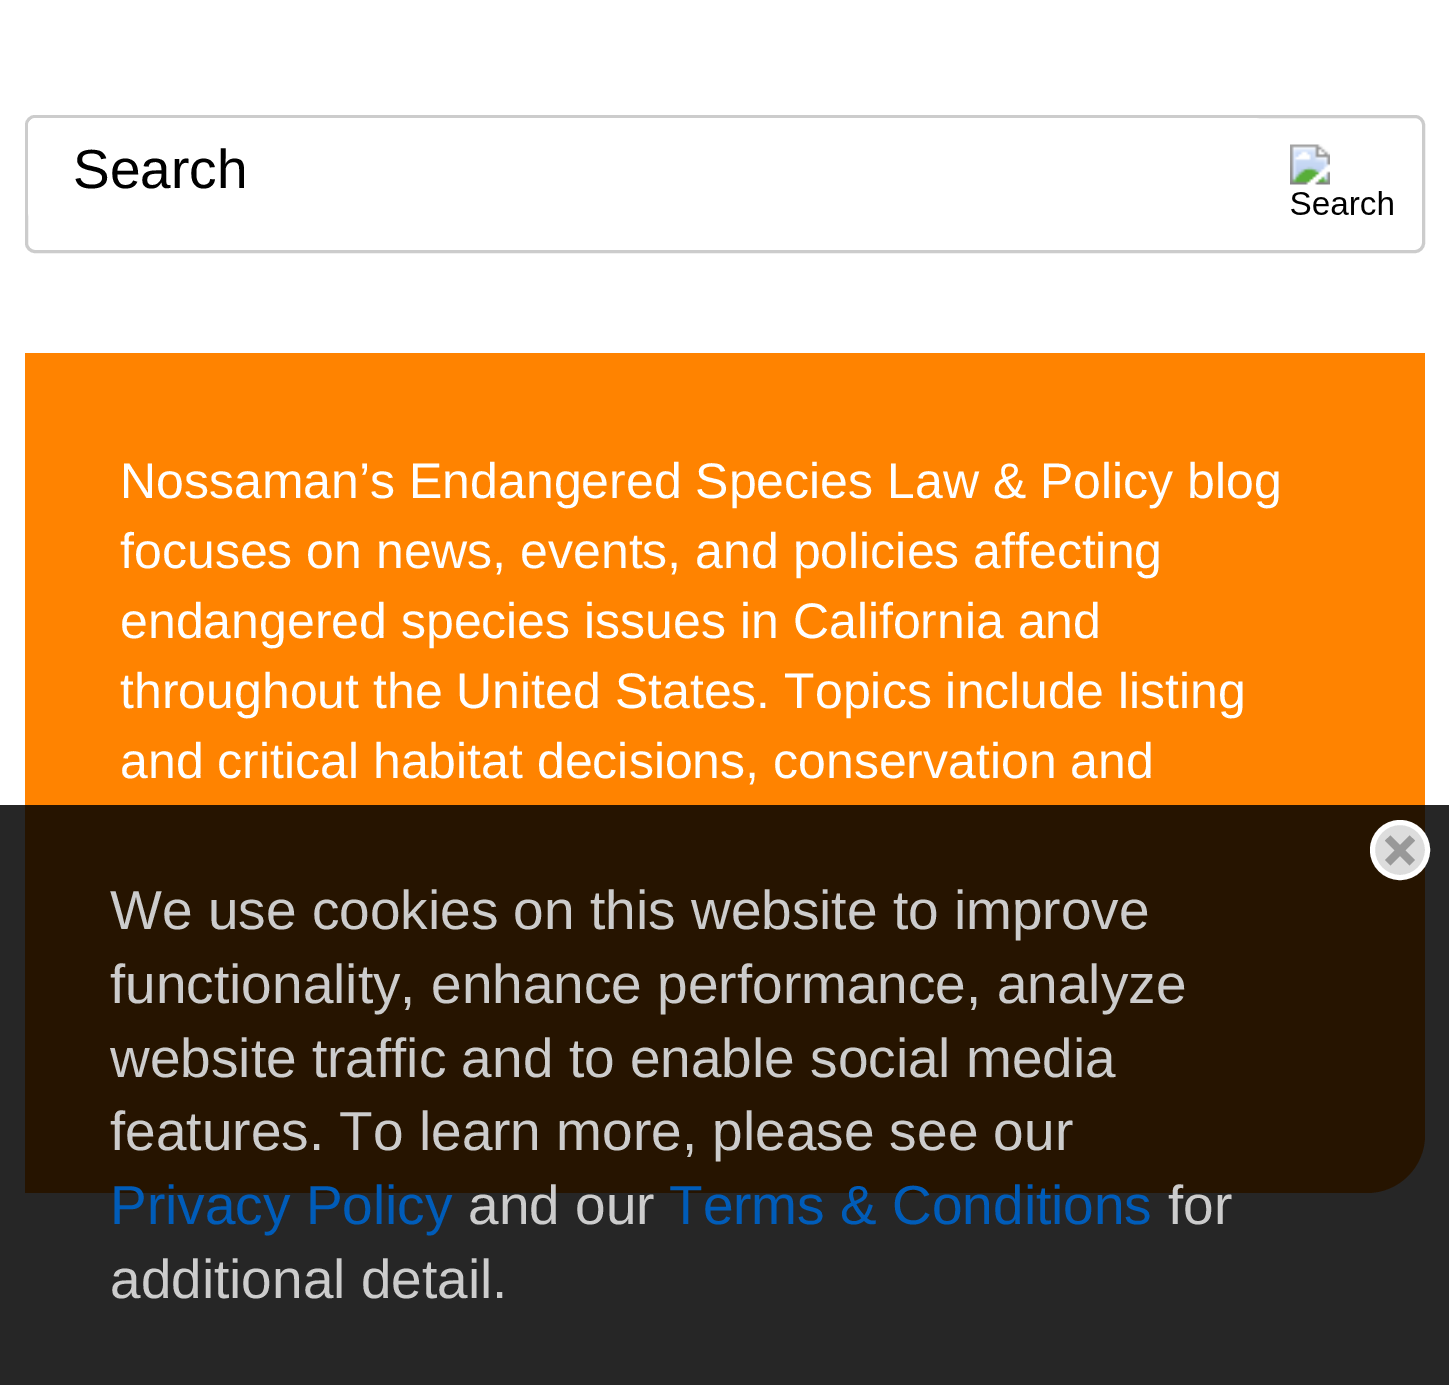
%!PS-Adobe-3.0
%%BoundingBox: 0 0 1449 1385
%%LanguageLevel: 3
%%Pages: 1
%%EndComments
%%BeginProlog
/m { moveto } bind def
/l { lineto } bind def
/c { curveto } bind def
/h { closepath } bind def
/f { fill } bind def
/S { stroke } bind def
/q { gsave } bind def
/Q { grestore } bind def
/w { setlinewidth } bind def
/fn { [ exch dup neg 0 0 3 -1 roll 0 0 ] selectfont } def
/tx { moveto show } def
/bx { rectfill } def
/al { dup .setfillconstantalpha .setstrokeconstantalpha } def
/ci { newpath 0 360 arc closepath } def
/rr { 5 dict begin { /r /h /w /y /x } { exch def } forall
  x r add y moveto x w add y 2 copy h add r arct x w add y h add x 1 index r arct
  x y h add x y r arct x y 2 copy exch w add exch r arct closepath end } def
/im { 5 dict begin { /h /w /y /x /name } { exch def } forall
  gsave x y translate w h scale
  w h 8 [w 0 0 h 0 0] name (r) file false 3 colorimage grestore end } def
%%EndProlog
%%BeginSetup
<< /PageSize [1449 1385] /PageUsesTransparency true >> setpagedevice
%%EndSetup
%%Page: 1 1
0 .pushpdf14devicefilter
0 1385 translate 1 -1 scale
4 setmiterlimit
1 setgray
0 0 1449 1385 bx
0.8 setgray
3 w
26.5 116.5 1397 135 8.5 rr S
1 setgray
28 118 1235 102 8 rr f
/LiberationSans-Regular 55 fn
0 setgray
(Search) 73 188 tx
(image0.raw) 1290 144 103 71 im
1 0.514 0 setrgbcolor
25 353 m 1425 353 l 1425 1135 l 1425 1167 1399 1193 1367 1193 c 25 1193 l h f
/LiberationSans-Regular 50 fn
1 setgray
(Nossaman’s Endangered Species Law & Policy blog) 120 498 tx
(focuses on news, events, and policies affecting) 120 568 tx
(endangered species issues in California and) 120 638 tx
(throughout the United States. Topics include listing) 120 708 tx
(and critical habitat decisions, conservation and) 120 778 tx
0.85 al
0 setgray
0 805 1449 580 bx
1 al
0.867 setgray
1400 850 27.5 ci q f Q
1 setgray
5 w
S
0.6 setgray
1385 860 m 1409.5 835.5 l 1415 840.5 l 1390.5 865.5 l h f
1390.5 835.5 m 1415 860 l 1409.5 865.5 l 1385 840.5 l h f
/LiberationSans-Regular 55 fn
0.8 setgray
(We use cookies on this website to improve) 110 929 tx
(functionality, enhance performance, analyze) 110 1003 tx
(website traffic and to enable social media) 110 1077 tx
(features. To learn more, please see our) 110 1150 tx
0 0.361 0.725 setrgbcolor
(Privacy Policy) 110 1224 tx
0.8 setgray
(and our) 468 1224 tx
0 0.361 0.725 setrgbcolor
(Terms & Conditions) 669 1224 tx
0.8 setgray
(for) 1168 1224 tx
(additional detail.) 110 1298 tx
.poppdf14devicefilter showpage
%%EOF
